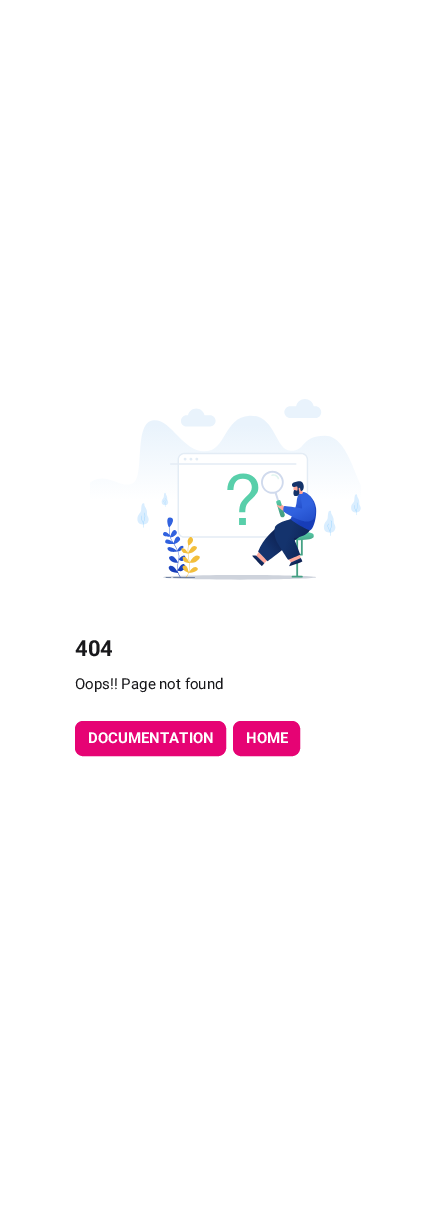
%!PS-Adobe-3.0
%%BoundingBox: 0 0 442 1220
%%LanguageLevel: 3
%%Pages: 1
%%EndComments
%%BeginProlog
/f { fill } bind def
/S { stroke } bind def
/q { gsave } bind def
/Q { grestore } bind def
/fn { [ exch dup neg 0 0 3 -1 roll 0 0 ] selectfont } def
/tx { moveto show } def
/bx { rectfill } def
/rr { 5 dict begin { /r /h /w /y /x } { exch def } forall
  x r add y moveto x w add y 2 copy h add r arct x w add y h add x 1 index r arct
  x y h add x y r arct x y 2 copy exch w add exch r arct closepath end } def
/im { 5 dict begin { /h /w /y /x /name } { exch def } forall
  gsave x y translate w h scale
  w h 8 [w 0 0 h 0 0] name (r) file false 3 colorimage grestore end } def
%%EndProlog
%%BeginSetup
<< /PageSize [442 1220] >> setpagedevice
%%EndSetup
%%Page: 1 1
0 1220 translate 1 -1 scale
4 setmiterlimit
1 setgray
0 0 442 1220 bx
(image0.raw) 90 399 271 181 im
/Roboto-Bold 22 fn
0.094 0.094 0.106 setrgbcolor
(404) 75 656 tx
/Roboto-Regular 15 fn
(Oops!! Page not found) 75 689 tx
0.902 0.012 0.455 setrgbcolor
75.5 721.5 150 34 7.5 rr q f Q
S
/Roboto-Bold 15 fn
1 setgray
(DOCUMENTATION) 88 743 tx
0.902 0.012 0.455 setrgbcolor
233.5 721.5 66 34 7.5 rr q f Q
S
1 setgray
(HOME) 246 743 tx
showpage
%%EOF
